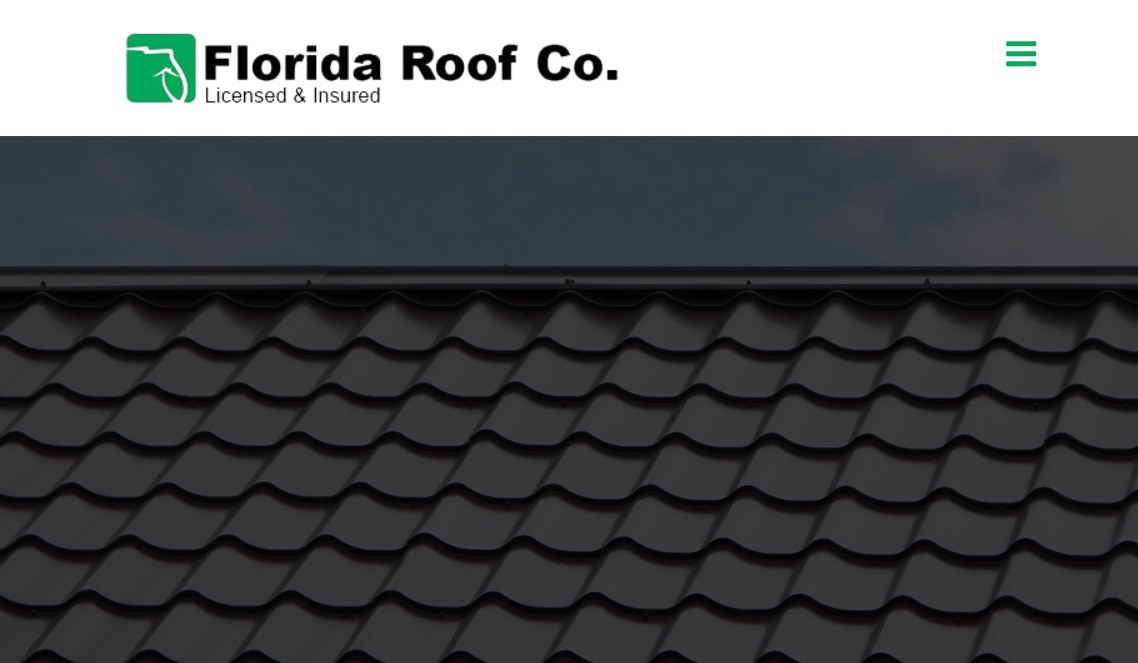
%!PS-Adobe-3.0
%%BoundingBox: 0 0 1138 663
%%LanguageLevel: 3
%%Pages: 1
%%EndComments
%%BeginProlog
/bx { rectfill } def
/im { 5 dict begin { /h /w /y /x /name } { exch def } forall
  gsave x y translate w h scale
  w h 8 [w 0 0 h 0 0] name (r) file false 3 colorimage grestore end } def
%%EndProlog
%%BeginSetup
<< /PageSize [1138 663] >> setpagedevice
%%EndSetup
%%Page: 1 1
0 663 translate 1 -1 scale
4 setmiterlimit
1 setgray
0 0 1138 663 bx
0.302 setgray
0 136 1138 1 bx
(image0.raw) 126 33 492 71 im
(image1.raw) 1006 41 31 26 im
(image2.raw) 0 136 1138 527 im
showpage
%%EOF
